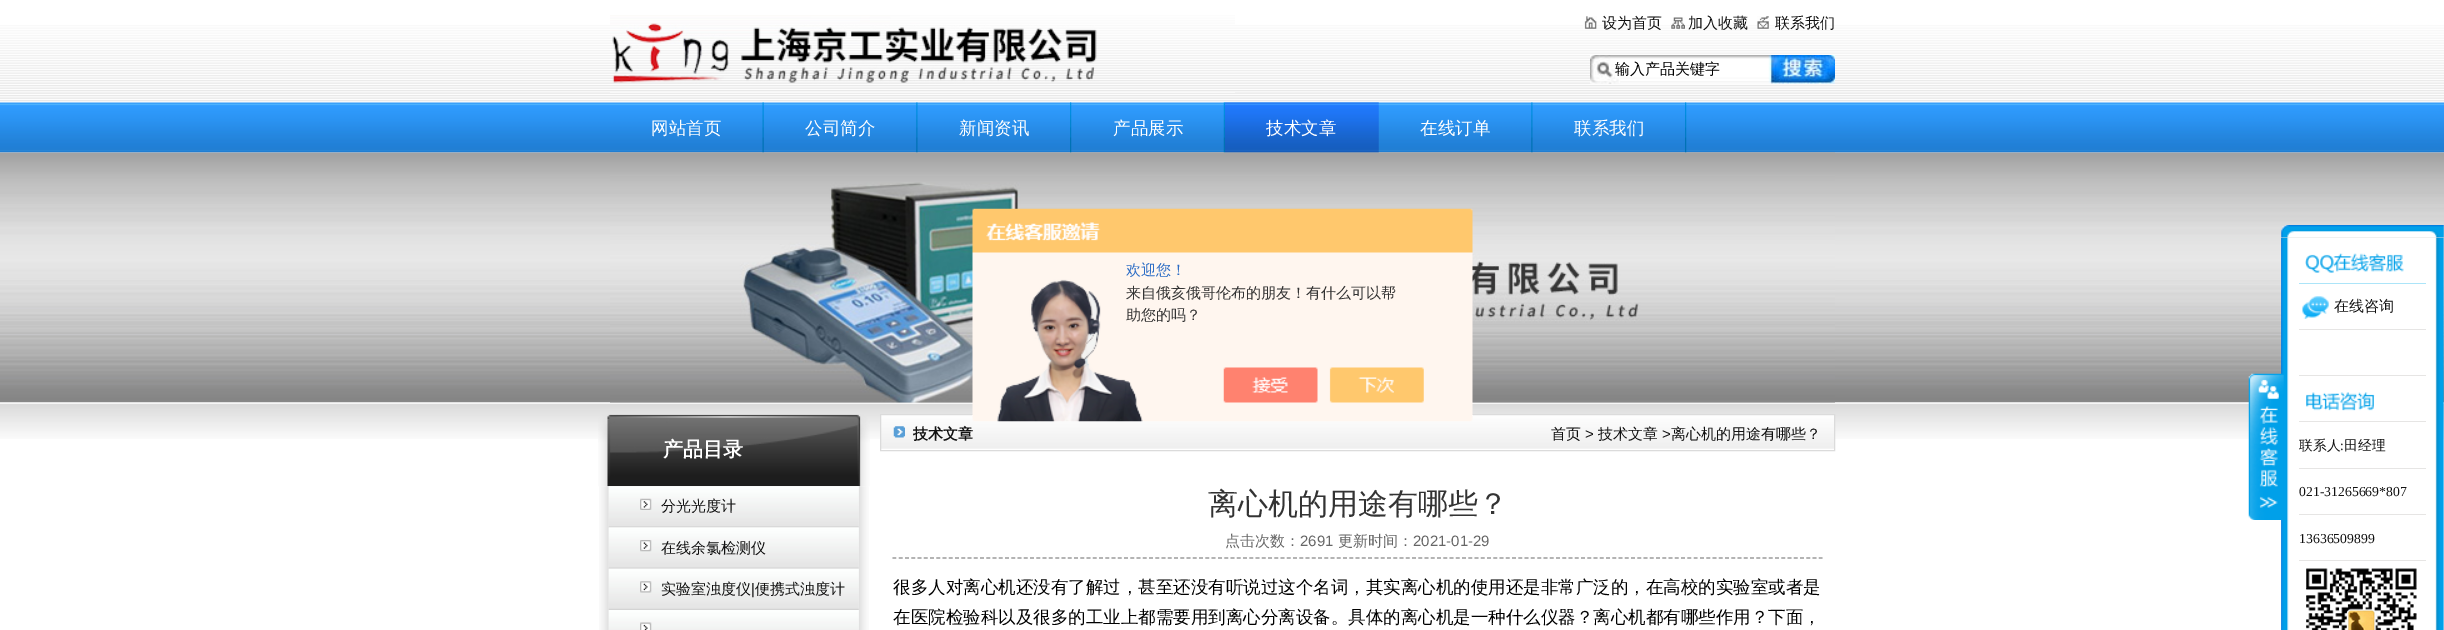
%!PS-Adobe-3.0
%%BoundingBox: 0 0 2444 630
%%LanguageLevel: 3
%%Pages: 1
%%EndComments
%%BeginProlog
/m { moveto } bind def
/l { lineto } bind def
/S { stroke } bind def
/w { setlinewidth } bind def
/fn { [ exch dup neg 0 0 3 -1 roll 0 0 ] selectfont } def
/tx { moveto show } def
/bx { rectfill } def
/im { 5 dict begin { /h /w /y /x /name } { exch def } forall
  gsave x y translate w h scale
  w h 8 [w 0 0 h 0 0] name (r) file false 3 colorimage grestore end } def
%%EndProlog
%%BeginSetup
<< /PageSize [2444 630] >> setpagedevice
%%EndSetup
%%Page: 1 1
0 630 translate 1 -1 scale
4 setmiterlimit
1 setgray
0 0 2444 630 bx
(image0.raw) 0 25 2444 77 im
(image1.raw) 610 15 625 78 im
(image2.raw) 1583 16 14 13 im
/WenQuanYiZenHei-Medium 15 fn
0.067 setgray
(设为首页) 1602 28 tx
(image3.raw) 1670 17 15 12 im
(加入收藏) 1688 28 tx
(image4.raw) 1757 16 12 13 im
(联系我们) 1775 28 tx
(image5.raw) 1590 55 245 29 im
0 setgray
(输入产品关键字) 1615 74 tx
(image6.raw) 0 102 2444 51 im
(image14.raw) 0 152 2444 251 im
(image7.raw) 762 102 2 51 im
/WenQuanYiZenHei-Medium 17.5 fn
1 setgray
(网站首页) 651 134 tx
(image8.raw) 916 102 2 51 im
(公司简介) 805 134 tx
(image9.raw) 1070 102 2 51 im
(新闻资讯) 959 134 tx
(image10.raw) 1223 102 2 51 im
(产品展示) 1113 134 tx
(image11.raw) 1225 102 154 51 im
(技术文章) 1266 134 tx
(image12.raw) 1531 102 2 51 im
(在线订单) 1420 134 tx
(image13.raw) 1685 102 2 51 im
(联系我们) 1574 134 tx
(image17.raw) 0 402 2444 37 im
(image15.raw) 610 152 1225 251 im
(image28.raw) 881 415 953 34 im
0.859 setgray
880.5 414.5 954 36 rectstroke
(image16.raw) 972 208 501 214 im
/WenQuanYiZenHei-Medium 15 fn
0.18 0.431 0.776 setrgbcolor
(欢迎您！) 1126 275 tx
0.2 setgray
(来自俄亥俄哥伦布的朋友！有什么可以帮) 1126 298 tx
(助您的吗？) 1126 320 tx
(image18.raw) 598 414 272 73 im
/WenQuanYiZenHei-Bold 20 fn
1 setgray
(产品目录) 663 456 tx
(image19.raw) 599 486 270 144 im
(image20.raw) 608 486 251 42 im
(image21.raw) 640 498 12 12 im
/WenQuanYiZenHei-Medium 15 fn
0.067 setgray
(分光光度计) 661 511 tx
(image22.raw) 608 527 251 42 im
(image23.raw) 640 540 12 12 im
(在线余氯检测仪) 661 553 tx
(image24.raw) 608 568 251 42 im
(image25.raw) 640 581 12 12 im
(实验室浊度仪) 661 594 tx
/LiberationSans-Regular 15 fn
(|) 751 594 tx
/WenQuanYiZenHei-Medium 15 fn
(便携式浊度计) 755 594 tx
(image26.raw) 608 610 251 20 im
(image27.raw) 640 622 12 8 im
(image29.raw) 893 426 12 12 im
/WenQuanYiZenHei-Bold 15 fn
(技术文章) 913 439 tx
/WenQuanYiZenHei-Medium 15 fn
(首页) 1551 439 tx
/LiberationSans-Regular 15 fn
(>) 1585 439 tx
/WenQuanYiZenHei-Medium 15 fn
(技术文章) 1598 439 tx
/LiberationSans-Regular 15 fn
(>) 1662 439 tx
/WenQuanYiZenHei-Medium 15 fn
(离心机的用途有哪些？) 1671 439 tx
/WenQuanYiZenHei-Medium 30 fn
0.2 setgray
(离心机的用途有哪些？) 1208 514 tx
0.6 setgray
1.2 w
[3.75 2.51] 0 setdash
892.5 558 m 1822.5 558 l S
/WenQuanYiZenHei-Medium 15 fn
0.4 setgray
(点击次数：) 1225 546 tx
/LiberationSans-Regular 15 fn
(2691) 1300 546 tx
/WenQuanYiZenHei-Medium 15 fn
(更新时间：) 1338 546 tx
/LiberationSans-Regular 15 fn
(2021-01-29) 1413 546 tx
/WenQuanYiZenHei-Medium 17.5 fn
0 setgray
(很多人对离心机还没有了解过，甚至还没有听说过这个名词，其实离心机的使用还是非常广泛的，在高校的实验室或者是) 893 593 tx
(在医院检验科以及很多的工业上都需要用到离心分离设备。具体的离心机是一种什么仪器？离心机都有哪些作用？下面，) 893 623 tx
(image32.raw) 2281 238 163 392 im
(image30.raw) 2248 373 36 147 im
(image31.raw) 2281 225 163 13 im
0.675 0.898 0.976 setrgbcolor
2299 283 127 1 bx
(image33.raw) 2305 253 99 20 im
0.902 0.898 0.894 setrgbcolor
2299 329 127 1 bx
(image34.raw) 2302 296 27 23 im
/WenQuanYiZenHei-Medium 15 fn
0.067 setgray
(在线咨询) 2334 311 tx
0.902 0.898 0.894 setrgbcolor
2299 375 127 1 bx
2299 421 127 1 bx
(image35.raw) 2306 392 69 19 im
2299 468 127 1 bx
/WenQuanYiZenHei-Medium 13.75 fn
0.067 setgray
(联系人) 2299 450 tx
/LiberationSerif-Regular 13.75 fn
(:) 2340 450 tx
/WenQuanYiZenHei-Medium 13.75 fn
(田经理) 2344 450 tx
0.902 0.898 0.894 setrgbcolor
2299 514 127 1 bx
/LiberationSerif-Regular 13.75 fn
0.067 setgray
(021-31265669*807) 2299 496 tx
0.902 0.898 0.894 setrgbcolor
2299 560 127 1 bx
0.067 setgray
(13636509899) 2299 543 tx
(image36.raw) 2306 568 111 62 im
showpage
%%EOF
